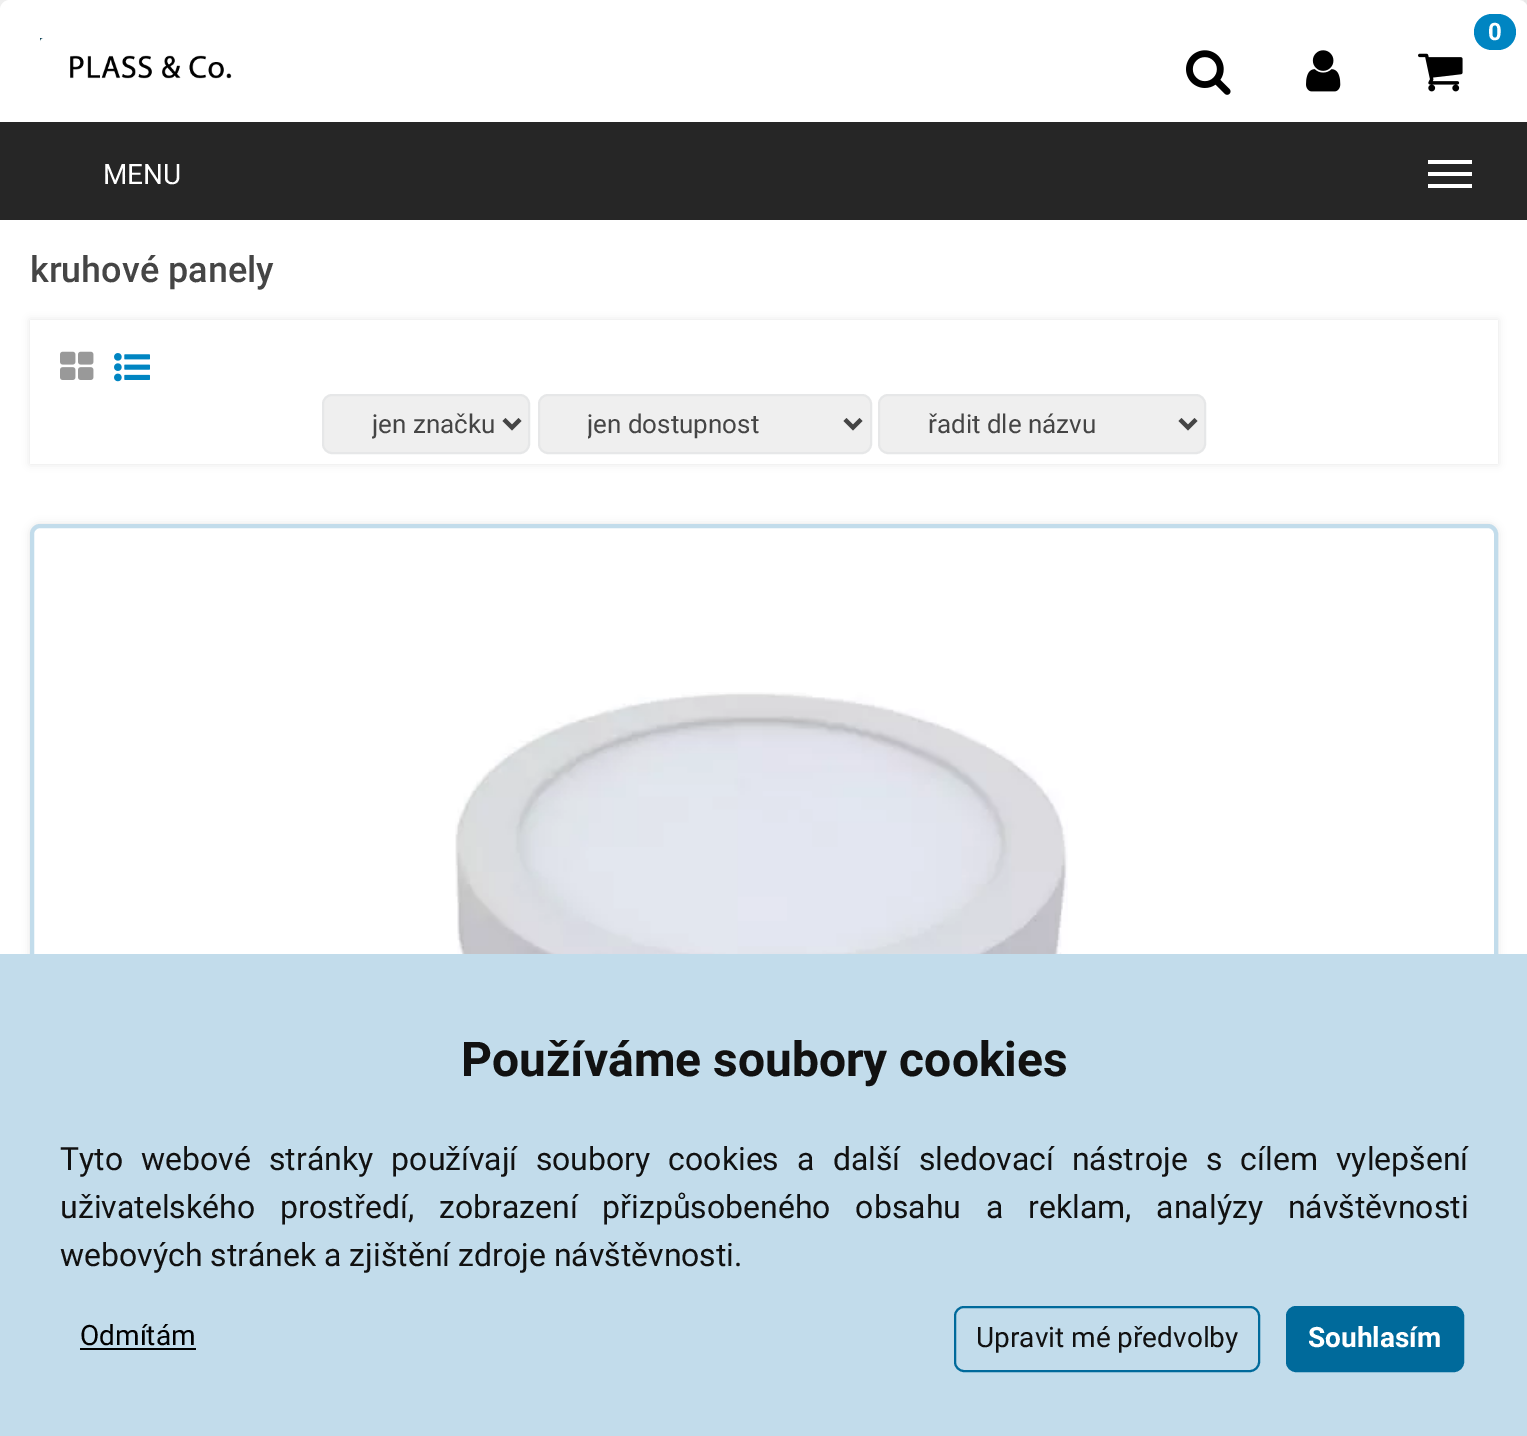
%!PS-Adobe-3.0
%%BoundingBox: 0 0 1527 1436
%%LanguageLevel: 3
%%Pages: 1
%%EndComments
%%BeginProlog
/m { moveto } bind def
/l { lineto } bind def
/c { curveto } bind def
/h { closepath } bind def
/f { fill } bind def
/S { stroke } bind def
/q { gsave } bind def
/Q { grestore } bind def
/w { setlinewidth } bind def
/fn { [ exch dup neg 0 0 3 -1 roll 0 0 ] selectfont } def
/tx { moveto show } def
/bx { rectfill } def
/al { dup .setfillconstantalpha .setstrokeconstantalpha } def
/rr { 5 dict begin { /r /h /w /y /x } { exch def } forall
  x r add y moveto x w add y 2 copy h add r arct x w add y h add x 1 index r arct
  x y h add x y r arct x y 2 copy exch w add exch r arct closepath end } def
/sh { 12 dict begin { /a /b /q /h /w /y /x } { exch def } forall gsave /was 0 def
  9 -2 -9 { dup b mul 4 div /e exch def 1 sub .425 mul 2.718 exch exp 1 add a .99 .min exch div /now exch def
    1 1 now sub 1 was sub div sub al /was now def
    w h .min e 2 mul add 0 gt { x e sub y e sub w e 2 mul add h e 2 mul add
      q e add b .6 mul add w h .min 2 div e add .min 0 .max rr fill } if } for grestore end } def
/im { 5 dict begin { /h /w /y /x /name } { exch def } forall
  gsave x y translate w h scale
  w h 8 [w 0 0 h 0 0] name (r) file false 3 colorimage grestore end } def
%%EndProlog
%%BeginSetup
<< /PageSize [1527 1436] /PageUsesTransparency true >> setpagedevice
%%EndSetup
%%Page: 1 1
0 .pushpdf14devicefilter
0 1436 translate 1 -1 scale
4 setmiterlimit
1 setgray
0 0 1527 1436 bx
(image0.raw) 0 0 1527 10 im
10 0 m 1518 0 l 1523.5 0 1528 4.5 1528 10 c 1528 122 l 0 122 l 0 10 l 0 4.5 4.5 0 10 0 c h f
0 0.522 0.761 setrgbcolor
1474 14 42 36 18 rr f
/Roboto-Bold 24 fn
1 setgray
(0) 1488 40 tx
(image1.raw) 1418 53 45 39 im
(image2.raw) 1186 50 45 45 im
(image3.raw) 1306 50 35 42 im
(image4.raw) 40 38 192 41 im
0.149 setgray
0 122 1527 98 bx
/Roboto-Regular 28 fn
1 setgray
(MENU) 103 184 tx
1428 160 44 4 bx
1428 172 44 4 bx
1428 184 44 4 bx
/Roboto-Medium 36 fn
0.271 setgray
(kruhové panely) 30 282 tx
q
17 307 m 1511 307 l 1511 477 l 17 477 l h 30 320 m 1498 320 l 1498 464 l 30 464 l h eoclip newpath
0 setgray
30 320 1468 144 0 4 0.1 sh
Q
(image5.raw) 60 351 34 29 im
(image6.raw) 114 353 36 29 im
0.937 setgray
323 395 206 58 9 rr q f Q
0.902 0.906 0.91 setrgbcolor
2 w
S
0.271 setgray
4 w
504 419.5 m 512 427.5 l 520 419.5 l S
q
372 406 124 34 rectclip
/Roboto-Regular 26 fn
(jen značku) 372 433 tx
Q
0.937 setgray
539 395 332 58 9 rr q f Q
0.902 0.906 0.91 setrgbcolor
2 w
S
0.271 setgray
4 w
845 419.5 m 853 427.5 l 861 419.5 l S
q
588 406 250 34 rectclip
/Roboto-Regular 26 fn
(jen dostupnost) 587 433 tx
Q
0.937 setgray
879 395 326 58 9 rr q f Q
0.902 0.906 0.91 setrgbcolor
2 w
S
0.271 setgray
4 w
1180 419.5 m 1188 427.5 l 1196 419.5 l S
/Roboto-Regular 26 fn
(řadit dle názvu) 928 433 tx
q
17 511 m 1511 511 l 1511 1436 l 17 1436 l h 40 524 m 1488 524 l 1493.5 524 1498 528.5 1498 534 c 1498 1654 l 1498 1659.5 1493.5 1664 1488 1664 c 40 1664 l 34.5 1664 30 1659.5 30 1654 c 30 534 l 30 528.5 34.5 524 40 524 c h eoclip newpath
0 setgray
30 524 1468 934 10 4 0.1 sh
Q
0.761 0.863 0.922 setrgbcolor
32 526 1464 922 8 rr S
(image7.raw) 455 692 613 262 im
0 954 1527 482 bx
/Roboto-Bold 48 fn
0.067 setgray
(Používáme soubory cookies) 461 1076 tx
/Roboto-Regular 32 fn
60 1170 m 10.25 0 32 (Tyto webové stránky používají soubory cookies a další sledovací nástroje s cílem vylepšení) widthshow
60 1218 m 17 0 32 (uživatelského prostředí, zobrazení přizpůsobeného obsahu a) widthshow
1028 1218 m 17 0 32 (reklam, analýzy návštěvnosti) widthshow
(webových stránek a zjištění zdroje návštěvnosti.) 60 1266 tx
/Roboto-Regular 28 fn
0 setgray
(Odmítám) 80 1345 tx
80 1348 116 2 bx
0 0.416 0.608 setrgbcolor
2 w
955 1307 304 64 9 rr S
0.067 setgray
(Upravit mé předvolby) 976 1347 tx
0 0.416 0.608 setrgbcolor
1287 1307 176 64 9 rr q f Q
S
/Roboto-Bold 28 fn
1 setgray
(Souhlasím) 1308 1347 tx
.poppdf14devicefilter showpage
%%EOF
